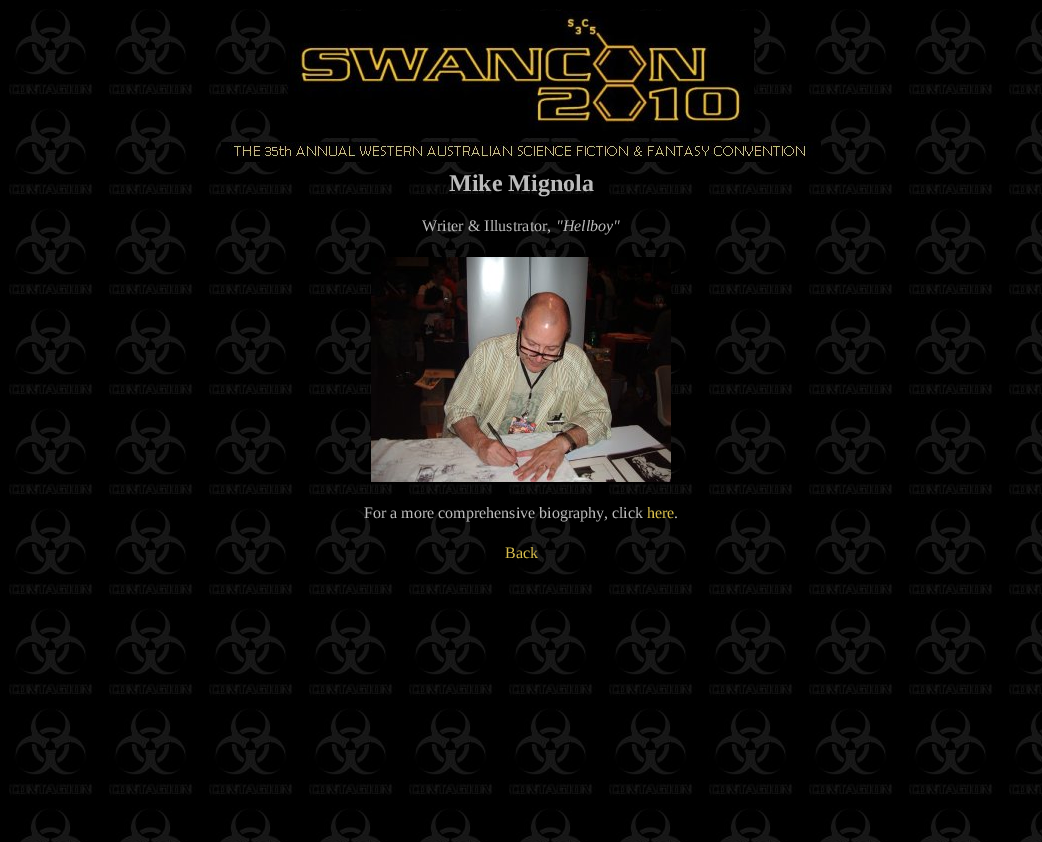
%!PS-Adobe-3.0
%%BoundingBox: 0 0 1042 842
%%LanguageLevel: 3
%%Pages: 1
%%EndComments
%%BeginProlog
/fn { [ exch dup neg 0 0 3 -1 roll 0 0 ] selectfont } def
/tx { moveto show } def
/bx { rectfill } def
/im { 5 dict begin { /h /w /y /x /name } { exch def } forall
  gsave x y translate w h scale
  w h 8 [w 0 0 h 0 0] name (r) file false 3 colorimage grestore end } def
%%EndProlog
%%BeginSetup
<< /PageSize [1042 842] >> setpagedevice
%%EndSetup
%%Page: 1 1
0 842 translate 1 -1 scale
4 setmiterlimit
0 setgray
0 0 1042 842 bx
(image0.raw) 9 9 1033 833 im
(image1.raw) 288 11 466 127 im
(image2.raw) 221 142 600 20 im
/LiberationSerif-Bold 24 fn
0.733 setgray
(Mike Mignola) 449 191 tx
/LiberationSerif-Regular 16 fn
(Writer & Illustrator,) 422 231 tx
/LiberationSerif-Italic 16 fn
("Hellboy") 556 231 tx
(image3.raw) 371 257 300 225 im
/LiberationSerif-Regular 16 fn
(For a more comprehensive biography, click) 364 518 tx
0.843 0.741 0.298 setrgbcolor
(here) 647 518 tx
0.733 setgray
(.) 674 518 tx
0.843 0.741 0.298 setrgbcolor
(Back) 505 558 tx
showpage
%%EOF
